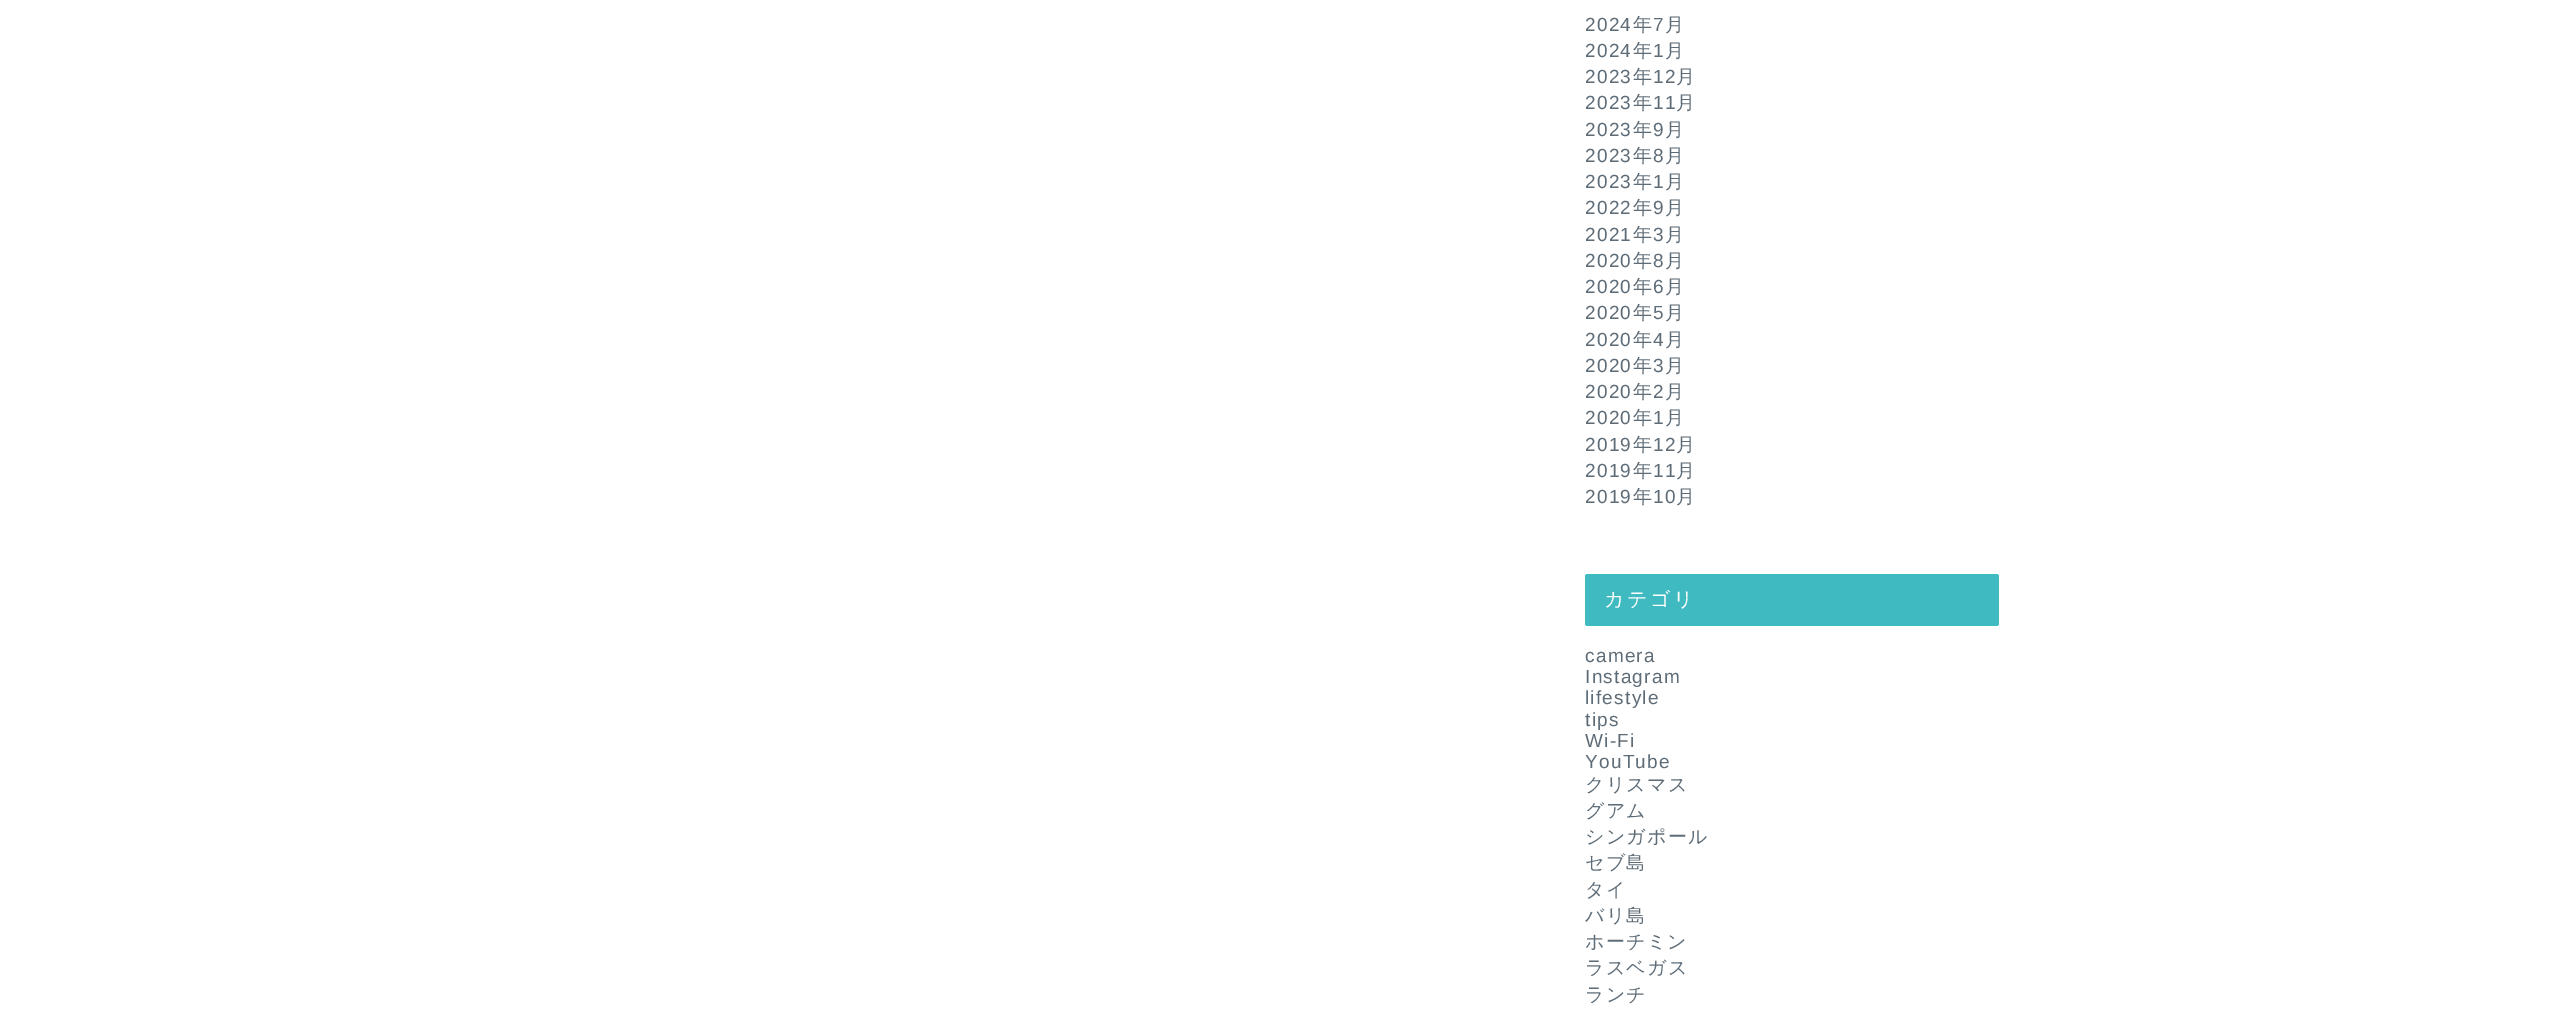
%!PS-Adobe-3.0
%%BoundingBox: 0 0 2571 1023
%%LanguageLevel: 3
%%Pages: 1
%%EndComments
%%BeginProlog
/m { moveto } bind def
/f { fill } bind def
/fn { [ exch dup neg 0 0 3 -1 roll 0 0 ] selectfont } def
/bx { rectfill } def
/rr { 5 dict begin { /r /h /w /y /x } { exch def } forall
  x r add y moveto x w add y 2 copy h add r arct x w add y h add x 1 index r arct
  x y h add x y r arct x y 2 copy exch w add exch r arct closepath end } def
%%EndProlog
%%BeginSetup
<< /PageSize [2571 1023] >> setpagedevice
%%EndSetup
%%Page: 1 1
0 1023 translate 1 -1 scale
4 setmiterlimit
1 setgray
0 0 2571 1023 bx
/LiberationSans-Regular 19 fn
0.369 0.424 0.467 setrgbcolor
1585 31 m 1.25 0 (2024) ashow
/WenQuanYiZenHei-Medium 19 fn
1633 31 m 1.25 0 (年) ashow
/LiberationSans-Regular 19 fn
1653 31 m 1.25 0 (7) ashow
/WenQuanYiZenHei-Medium 19 fn
1665 31 m 1.25 0 (月) ashow
/LiberationSans-Regular 19 fn
1585 57 m 1.25 0 (2024) ashow
/WenQuanYiZenHei-Medium 19 fn
1633 57 m 1.25 0 (年) ashow
/LiberationSans-Regular 19 fn
1653 57 m 1.25 0 (1) ashow
/WenQuanYiZenHei-Medium 19 fn
1665 57 m 1.25 0 (月) ashow
/LiberationSans-Regular 19 fn
1585 83 m 1.25 0 (2023) ashow
/WenQuanYiZenHei-Medium 19 fn
1633 83 m 1.25 0 (年) ashow
/LiberationSans-Regular 19 fn
1653 83 m 1.25 0 (12) ashow
/WenQuanYiZenHei-Medium 19 fn
1676 83 m 1.25 0 (月) ashow
/LiberationSans-Regular 19 fn
1585 109 m 1.25 0 (2023) ashow
/WenQuanYiZenHei-Medium 19 fn
1633 109 m 1.25 0 (年) ashow
/LiberationSans-Regular 19 fn
1653 109 m 1.25 0 (11) ashow
/WenQuanYiZenHei-Medium 19 fn
1676 109 m 1.25 0 (月) ashow
/LiberationSans-Regular 19 fn
1585 136 m 1.25 0 (2023) ashow
/WenQuanYiZenHei-Medium 19 fn
1633 136 m 1.25 0 (年) ashow
/LiberationSans-Regular 19 fn
1653 136 m 1.25 0 (9) ashow
/WenQuanYiZenHei-Medium 19 fn
1665 136 m 1.25 0 (月) ashow
/LiberationSans-Regular 19 fn
1585 162 m 1.25 0 (2023) ashow
/WenQuanYiZenHei-Medium 19 fn
1633 162 m 1.25 0 (年) ashow
/LiberationSans-Regular 19 fn
1653 162 m 1.25 0 (8) ashow
/WenQuanYiZenHei-Medium 19 fn
1665 162 m 1.25 0 (月) ashow
/LiberationSans-Regular 19 fn
1585 188 m 1.25 0 (2023) ashow
/WenQuanYiZenHei-Medium 19 fn
1633 188 m 1.25 0 (年) ashow
/LiberationSans-Regular 19 fn
1653 188 m 1.25 0 (1) ashow
/WenQuanYiZenHei-Medium 19 fn
1665 188 m 1.25 0 (月) ashow
/LiberationSans-Regular 19 fn
1585 214 m 1.25 0 (2022) ashow
/WenQuanYiZenHei-Medium 19 fn
1633 214 m 1.25 0 (年) ashow
/LiberationSans-Regular 19 fn
1653 214 m 1.25 0 (9) ashow
/WenQuanYiZenHei-Medium 19 fn
1665 214 m 1.25 0 (月) ashow
/LiberationSans-Regular 19 fn
1585 241 m 1.25 0 (2021) ashow
/WenQuanYiZenHei-Medium 19 fn
1633 241 m 1.25 0 (年) ashow
/LiberationSans-Regular 19 fn
1653 241 m 1.25 0 (3) ashow
/WenQuanYiZenHei-Medium 19 fn
1665 241 m 1.25 0 (月) ashow
/LiberationSans-Regular 19 fn
1585 267 m 1.25 0 (2020) ashow
/WenQuanYiZenHei-Medium 19 fn
1633 267 m 1.25 0 (年) ashow
/LiberationSans-Regular 19 fn
1653 267 m 1.25 0 (8) ashow
/WenQuanYiZenHei-Medium 19 fn
1665 267 m 1.25 0 (月) ashow
/LiberationSans-Regular 19 fn
1585 293 m 1.25 0 (2020) ashow
/WenQuanYiZenHei-Medium 19 fn
1633 293 m 1.25 0 (年) ashow
/LiberationSans-Regular 19 fn
1653 293 m 1.25 0 (6) ashow
/WenQuanYiZenHei-Medium 19 fn
1665 293 m 1.25 0 (月) ashow
/LiberationSans-Regular 19 fn
1585 319 m 1.25 0 (2020) ashow
/WenQuanYiZenHei-Medium 19 fn
1633 319 m 1.25 0 (年) ashow
/LiberationSans-Regular 19 fn
1653 319 m 1.25 0 (5) ashow
/WenQuanYiZenHei-Medium 19 fn
1665 319 m 1.25 0 (月) ashow
/LiberationSans-Regular 19 fn
1585 346 m 1.25 0 (2020) ashow
/WenQuanYiZenHei-Medium 19 fn
1633 346 m 1.25 0 (年) ashow
/LiberationSans-Regular 19 fn
1653 346 m 1.25 0 (4) ashow
/WenQuanYiZenHei-Medium 19 fn
1665 346 m 1.25 0 (月) ashow
/LiberationSans-Regular 19 fn
1585 372 m 1.25 0 (2020) ashow
/WenQuanYiZenHei-Medium 19 fn
1633 372 m 1.25 0 (年) ashow
/LiberationSans-Regular 19 fn
1653 372 m 1.25 0 (3) ashow
/WenQuanYiZenHei-Medium 19 fn
1665 372 m 1.25 0 (月) ashow
/LiberationSans-Regular 19 fn
1585 398 m 1.25 0 (2020) ashow
/WenQuanYiZenHei-Medium 19 fn
1633 398 m 1.25 0 (年) ashow
/LiberationSans-Regular 19 fn
1653 398 m 1.25 0 (2) ashow
/WenQuanYiZenHei-Medium 19 fn
1665 398 m 1.25 0 (月) ashow
/LiberationSans-Regular 19 fn
1585 424 m 1.25 0 (2020) ashow
/WenQuanYiZenHei-Medium 19 fn
1633 424 m 1.25 0 (年) ashow
/LiberationSans-Regular 19 fn
1653 424 m 1.25 0 (1) ashow
/WenQuanYiZenHei-Medium 19 fn
1665 424 m 1.25 0 (月) ashow
/LiberationSans-Regular 19 fn
1585 451 m 1.25 0 (2019) ashow
/WenQuanYiZenHei-Medium 19 fn
1633 451 m 1.25 0 (年) ashow
/LiberationSans-Regular 19 fn
1653 451 m 1.25 0 (12) ashow
/WenQuanYiZenHei-Medium 19 fn
1676 451 m 1.25 0 (月) ashow
/LiberationSans-Regular 19 fn
1585 477 m 1.25 0 (2019) ashow
/WenQuanYiZenHei-Medium 19 fn
1633 477 m 1.25 0 (年) ashow
/LiberationSans-Regular 19 fn
1653 477 m 1.25 0 (11) ashow
/WenQuanYiZenHei-Medium 19 fn
1676 477 m 1.25 0 (月) ashow
/LiberationSans-Regular 19 fn
1585 503 m 1.25 0 (2019) ashow
/WenQuanYiZenHei-Medium 19 fn
1633 503 m 1.25 0 (年) ashow
/LiberationSans-Regular 19 fn
1653 503 m 1.25 0 (10) ashow
/WenQuanYiZenHei-Medium 19 fn
1676 503 m 1.25 0 (月) ashow
0.247 0.729 0.757 setrgbcolor
1585 574 414 52 2.5 rr f
/WenQuanYiZenHei-Medium 20 fn
1 setgray
1604 606 m 2.5 0 (カテゴリ) ashow
/LiberationSans-Regular 19 fn
0.369 0.424 0.467 setrgbcolor
1585 662 m 1.25 0 (camera) ashow
1585 683 m 1.25 0 (Instagram) ashow
1585 704 m 1.25 0 (lifestyle) ashow
1585 726 m 1.25 0 (tips) ashow
1585 747 m 1.25 0 (Wi-Fi) ashow
1585 768 m 1.25 0 (YouTube) ashow
/WenQuanYiZenHei-Medium 19 fn
1585 791 m 1.25 0 (クリスマス) ashow
1585 817 m 1.25 0 (グアム) ashow
1585 843 m 1.25 0 (シンガポール) ashow
1585 869 m 1.25 0 (セブ島) ashow
1585 896 m 1.25 0 (タイ) ashow
1585 922 m 1.25 0 (バリ島) ashow
1585 948 m 1.25 0 (ホーチミン) ashow
1585 974 m 1.25 0 (ラスベガス) ashow
1585 1001 m 1.25 0 (ランチ) ashow
showpage
%%EOF
